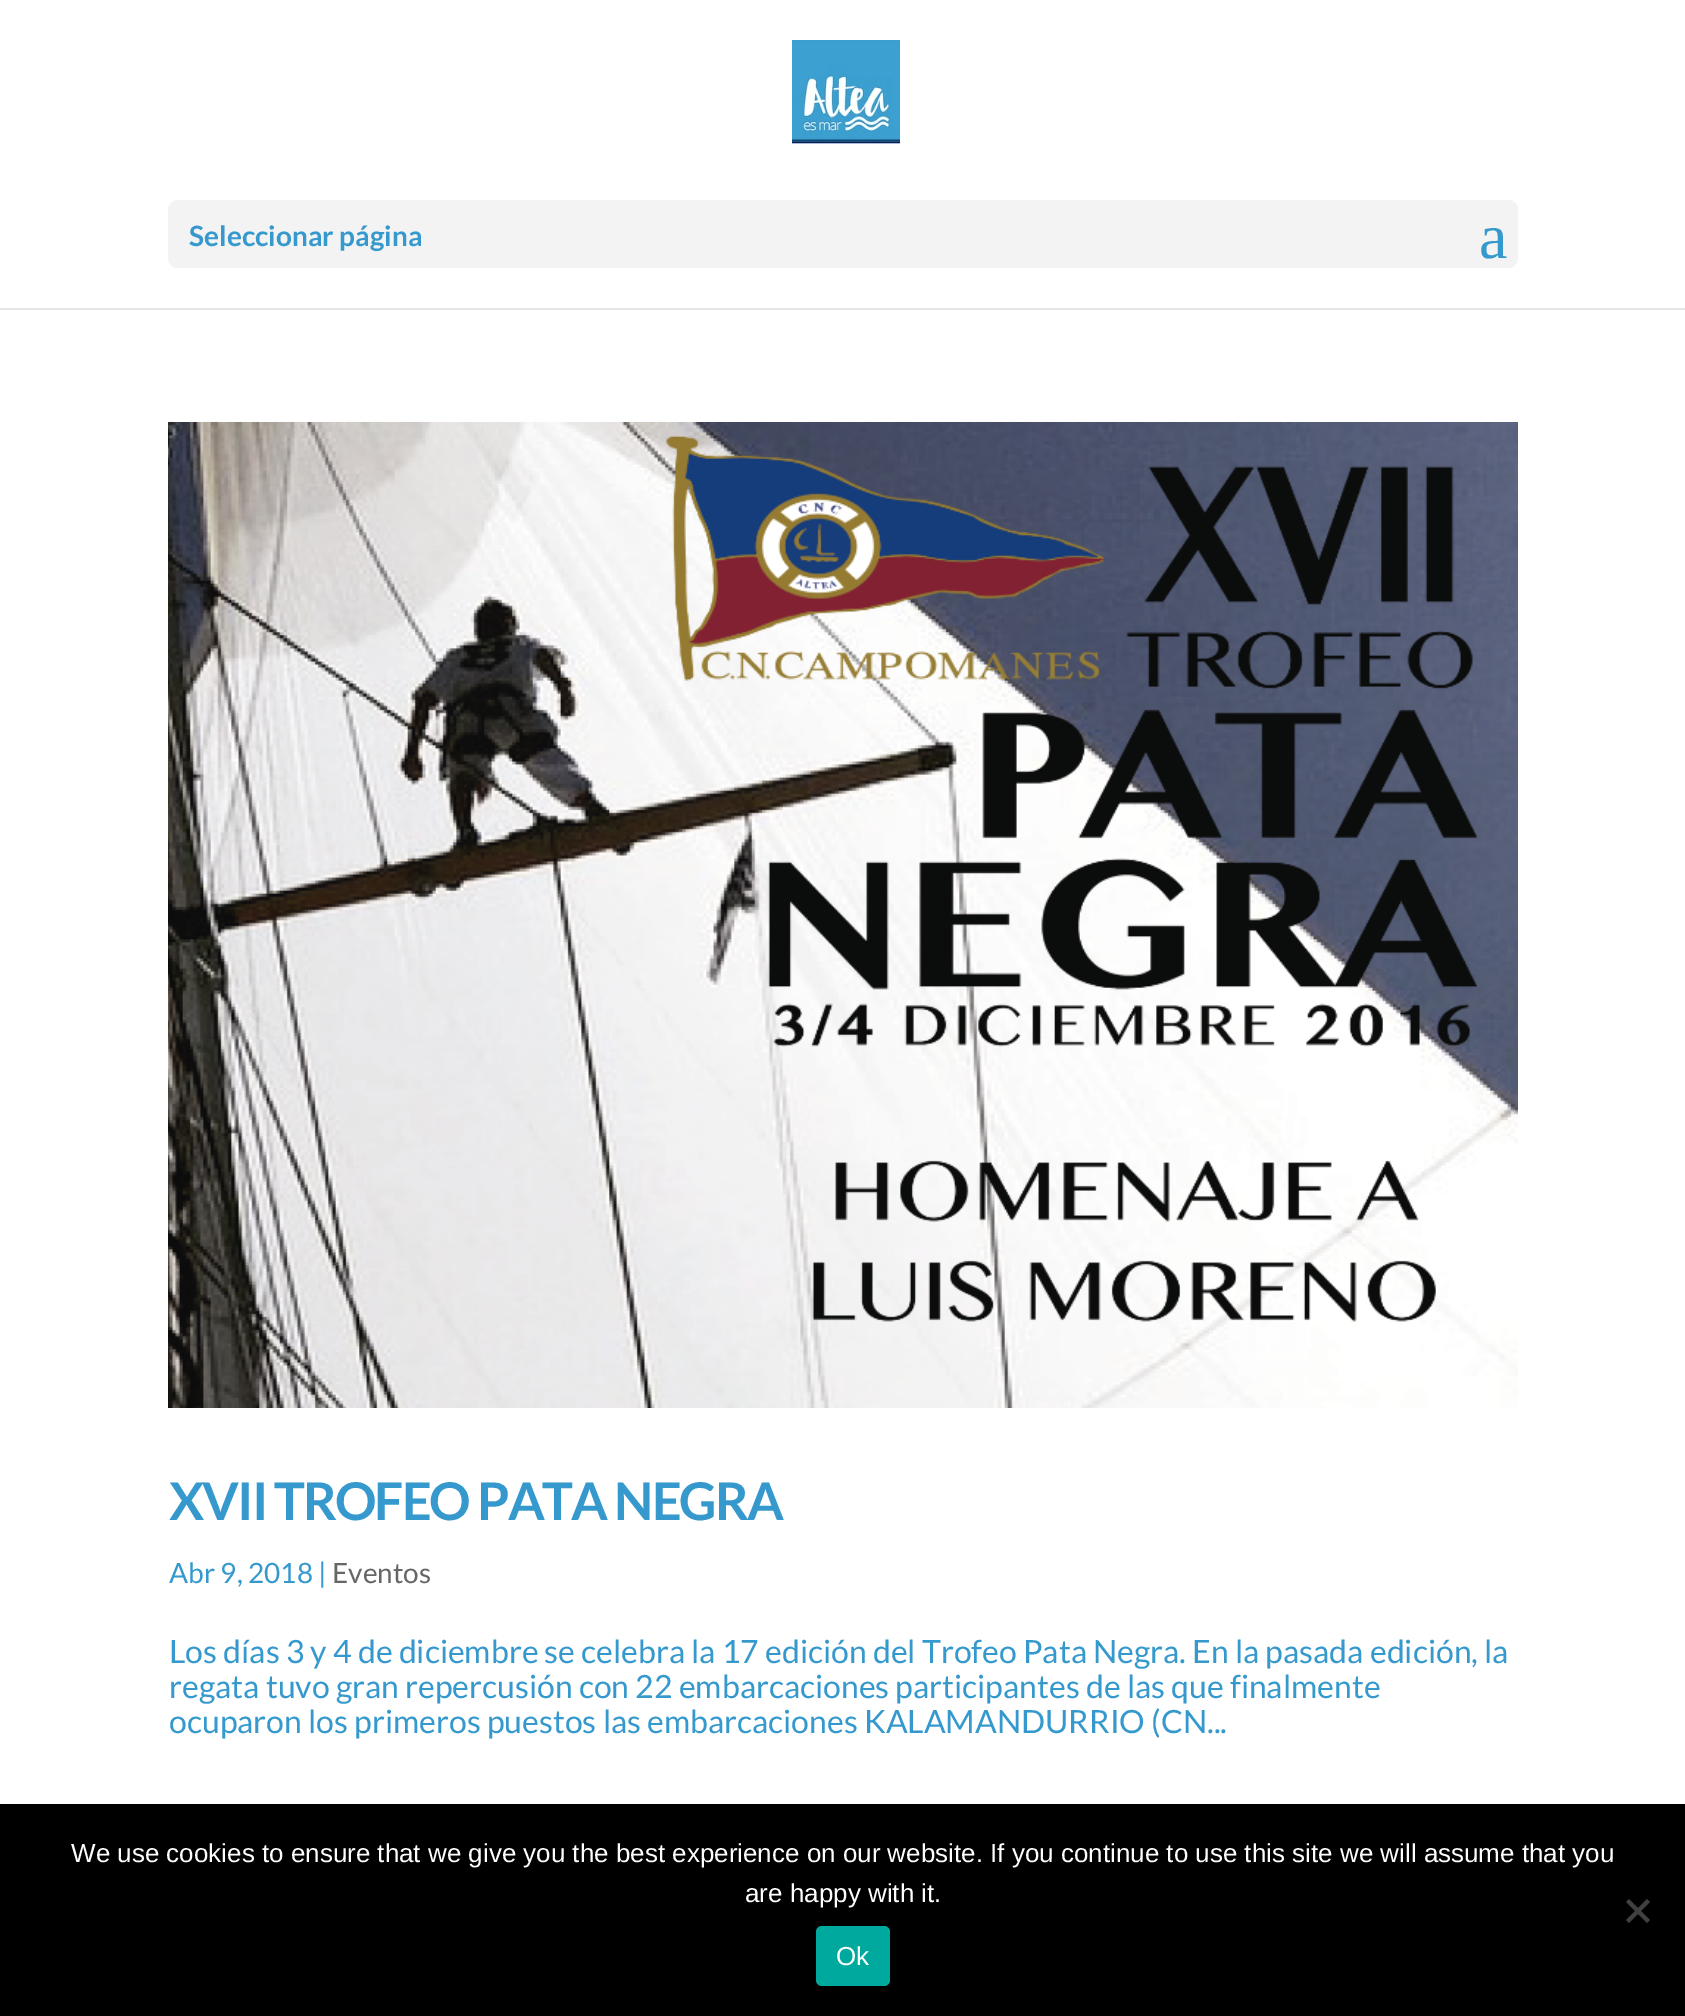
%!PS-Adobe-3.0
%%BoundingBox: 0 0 1685 2016
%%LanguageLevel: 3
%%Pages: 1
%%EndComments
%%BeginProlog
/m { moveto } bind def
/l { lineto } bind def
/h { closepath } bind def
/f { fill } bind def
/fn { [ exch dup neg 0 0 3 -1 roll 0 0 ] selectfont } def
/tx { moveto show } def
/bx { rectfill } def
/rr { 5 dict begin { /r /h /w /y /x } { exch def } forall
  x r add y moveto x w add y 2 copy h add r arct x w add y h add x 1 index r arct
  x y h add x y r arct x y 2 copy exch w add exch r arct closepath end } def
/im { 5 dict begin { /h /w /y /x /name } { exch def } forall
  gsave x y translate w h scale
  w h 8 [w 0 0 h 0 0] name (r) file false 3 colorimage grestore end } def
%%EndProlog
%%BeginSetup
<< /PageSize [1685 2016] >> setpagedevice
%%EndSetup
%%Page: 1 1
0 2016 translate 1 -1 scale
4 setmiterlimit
1 setgray
0 0 1685 2016 bx
0.902 setgray
0 308 1685 2 bx
(image0.raw) 792 40 108 104 im
0.953 setgray
168 200 1350 68 10 rr f
/Lato-Bold 28 fn
0.212 0.6 0.808 setrgbcolor
(Seleccionar página) 189 246 tx
/LiberationSerif-Regular 64 fn
(a) 1479 258 tx
(image1.raw) 168 422 1350 986 im
/Lato-Bold 52 fn
169 1520 m -2 0 (XVII TROFEO PATA NEGRA) ashow
/Lato-Regular 28 fn
(Abr 9, 2018 |) 169 1583 tx
0.4 setgray
(Eventos) 332 1583 tx
/Lato-Regular 32 fn
0.212 0.6 0.808 setrgbcolor
(Los días 3 y 4 de diciembre se celebra la 17 edición del Trofeo Pata Negra. En la pasada edición, la) 169 1663 tx
(regata tuvo gran repercusión con 22 embarcaciones participantes de las que finalmente) 169 1698 tx
(ocuparon los primeros puestos las embarcaciones KALAMANDURRIO \(CN...) 169 1733 tx
0 setgray
0 1804 1685 212 bx
/LiberationSans-Regular 26 fn
1 setgray
(We use cookies to ensure that we give you the best experience on our website. If you continue to use this site we will assume that you) 71 1862 tx
(are happy with it.) 745 1902 tx
0.251 setgray
1647 1899 m 1650 1902 l 1629 1923 l 1626 1920 l h f
1626 1902 m 1629 1899 l 1650 1920 l 1647 1923 l h f
0 0.663 0.616 setrgbcolor
816 1926 74 60 6 rr f
1 setgray
(Ok) 836 1965 tx
showpage
%%EOF
